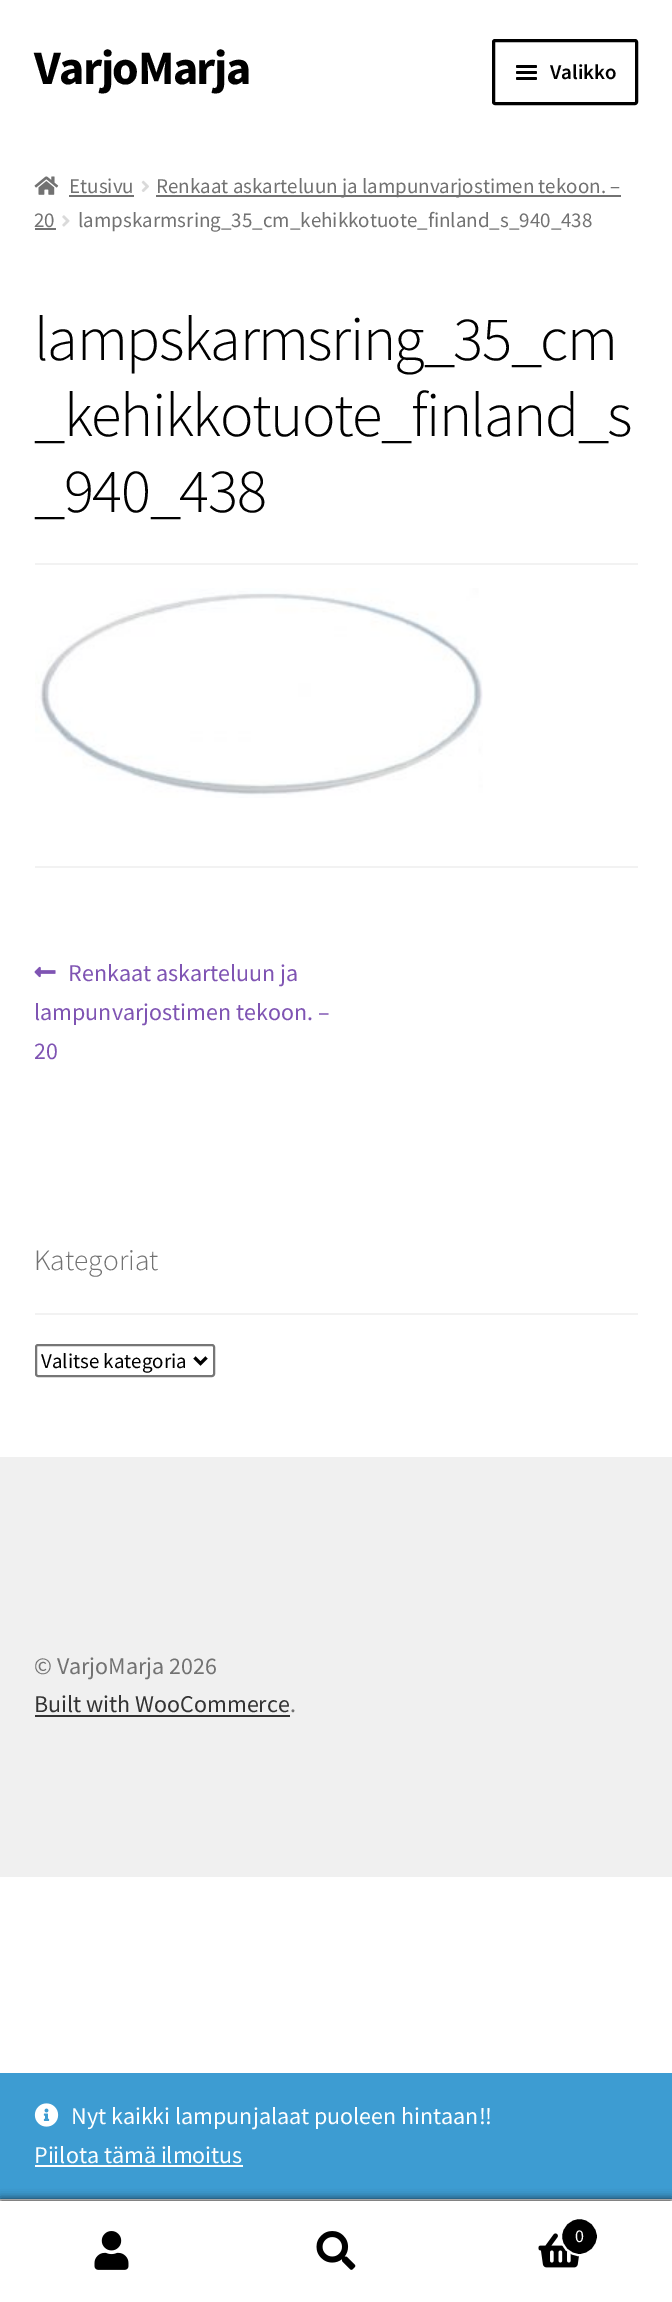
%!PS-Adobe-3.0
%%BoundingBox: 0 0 672 2302
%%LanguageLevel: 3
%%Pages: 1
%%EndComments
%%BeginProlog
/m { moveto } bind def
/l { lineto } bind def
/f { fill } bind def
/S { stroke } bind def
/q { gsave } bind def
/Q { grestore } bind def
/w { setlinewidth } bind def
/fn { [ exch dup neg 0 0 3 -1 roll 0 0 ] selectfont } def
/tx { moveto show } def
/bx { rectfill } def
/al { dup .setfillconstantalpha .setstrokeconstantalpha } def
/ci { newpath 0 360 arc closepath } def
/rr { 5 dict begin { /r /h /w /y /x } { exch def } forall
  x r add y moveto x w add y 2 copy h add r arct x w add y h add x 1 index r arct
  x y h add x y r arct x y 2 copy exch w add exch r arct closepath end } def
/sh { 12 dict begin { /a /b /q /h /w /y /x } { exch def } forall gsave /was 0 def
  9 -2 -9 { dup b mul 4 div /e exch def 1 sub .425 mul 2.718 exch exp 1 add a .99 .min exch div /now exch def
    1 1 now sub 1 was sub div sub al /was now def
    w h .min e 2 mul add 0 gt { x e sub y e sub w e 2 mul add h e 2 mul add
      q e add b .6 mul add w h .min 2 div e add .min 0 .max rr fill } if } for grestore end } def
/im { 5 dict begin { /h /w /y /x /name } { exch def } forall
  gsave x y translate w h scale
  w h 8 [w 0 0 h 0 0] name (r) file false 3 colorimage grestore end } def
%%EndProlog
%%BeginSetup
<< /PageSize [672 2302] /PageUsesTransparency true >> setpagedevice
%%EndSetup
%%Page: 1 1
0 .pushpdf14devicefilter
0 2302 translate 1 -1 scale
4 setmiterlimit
1 setgray
0 0 672 2302 bx
/SourceSansPro-Bold 48 fn
0 setgray
34 84 m -1.5 0 (VarjoMarja) ashow
3 w
493.5 40.5 143 63 1.5 rr S
516 65 21 3 1.5 rr f
516 71 21 3 1.5 rr f
/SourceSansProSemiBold-SemiBold 21 fn
(Valikko) 550 79 tx
516 77 21 3 1.5 rr f
(image0.raw) 34 176 25 19 im
/SourceSansPro-Regular 21 fn
0.447 setgray
(Etusivu) 69 193 tx
69 195 65 2 bx
(image1.raw) 141 180 8 12 im
156 195 465 2 bx
(Renkaat askarteluun ja lampunvarjostimen tekoon. –) 156 193 tx
(20) 34 227 tx
35 228 21 2 bx
(image2.raw) 62 215 8 12 im
(lampskarmsring_35_cm_kehikkotuote_finland_s_940_438) 78 227 tx
0.949 setgray
35 563 603 2 bx
/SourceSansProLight-Light 62.75 fn
0 setgray
34 360 m -1.5 0 (lampskarmsring_35_cm) ashow
34 436 m -1.5 0 (_kehikkotuote_finland_s) ashow
34 512 m -1.5 0 (_940_438) ashow
(image3.raw) 35 588 448 210 im
0.949 setgray
35 866 603 2 bx
(image4.raw) 34 966 22 12 im
/SourceSansPro-Regular 24 fn
0.498 0.329 0.702 setrgbcolor
(Renkaat askarteluun ja) 68 981 tx
(lampunvarjostimen tekoon. –) 34 1020 tx
(20) 34 1059 tx
0.949 setgray
35 1313 603 2 bx
/SourceSansProLight-Light 29.5 fn
0.447 setgray
(Kategoriat) 34 1270 tx
0.463 setgray
2 w
36 1345 178 31 2 rr S
0 setgray
3 w
194.5 1357.5 m 200.5 1363.5 l 206.5 1357.5 l S
/SourceSansPro-Regular 21 fn
(Valitse kategoria) 41 1368 tx
0.941 setgray
0 1457 672 420 bx
/SourceSansPro-Regular 24 fn
0.447 setgray
(© VarjoMarja 2026) 34 1674 tx
0.2 setgray
(Built with WooCommerce) 34 1712 tx
35 1715 255 2 bx
0.447 setgray
(.) 290 1712 tx
0.239 0.612 0.824 setrgbcolor
0 2073 672 126 bx
0 setgray
0 2199 672 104 0 4.5 0.7 sh
1 setgray
0 2201 672 101 bx
(image5.raw) 94 2231 35 39 im
(image6.raw) 316 2231 40 39 im
(image7.raw) 538 2233 41 35 im
0 setgray
579.5 2236.5 18.5 ci q f Q
1 setgray
2 w
S
/SourceSansPro-Regular 18 fn
(0) 575 2242 tx
(image8.raw) 34 2103 25 24 im
/SourceSansPro-Regular 24 fn
(Nyt kaikki lampunjalaat puoleen hintaan!!) 71 2124 tx
(Piilota tämä ilmoitus) 34 2163 tx
35 2165 208 2 bx
.poppdf14devicefilter showpage
%%EOF
